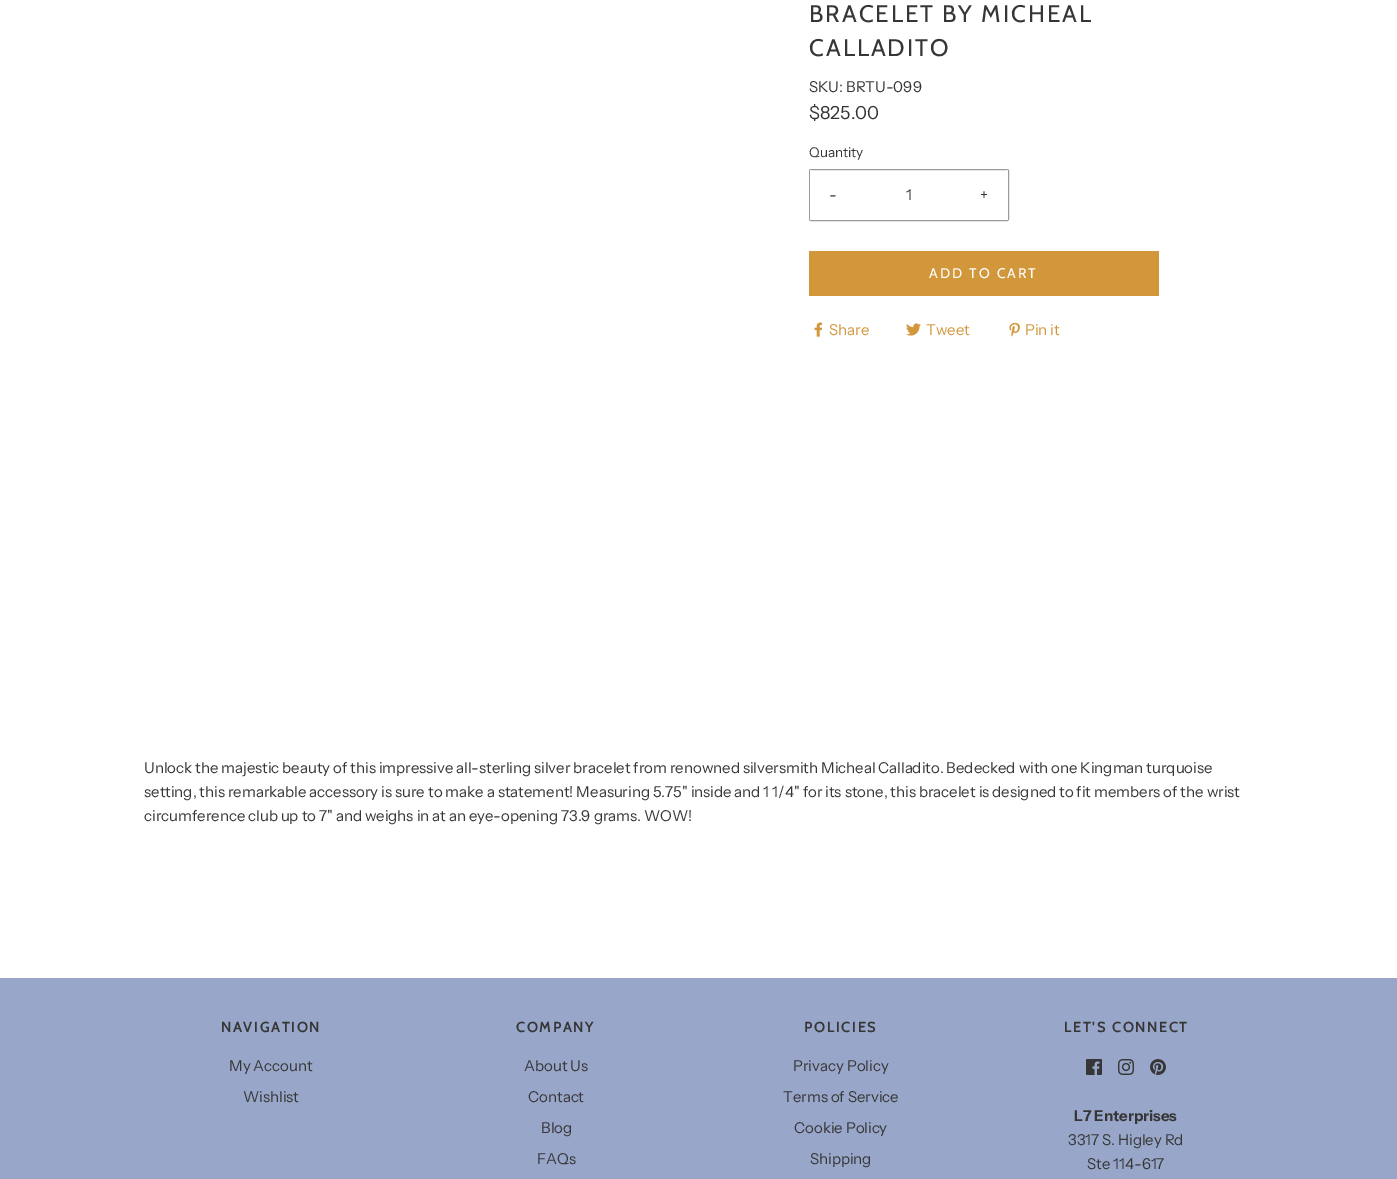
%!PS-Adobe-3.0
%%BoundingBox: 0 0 1397 1179
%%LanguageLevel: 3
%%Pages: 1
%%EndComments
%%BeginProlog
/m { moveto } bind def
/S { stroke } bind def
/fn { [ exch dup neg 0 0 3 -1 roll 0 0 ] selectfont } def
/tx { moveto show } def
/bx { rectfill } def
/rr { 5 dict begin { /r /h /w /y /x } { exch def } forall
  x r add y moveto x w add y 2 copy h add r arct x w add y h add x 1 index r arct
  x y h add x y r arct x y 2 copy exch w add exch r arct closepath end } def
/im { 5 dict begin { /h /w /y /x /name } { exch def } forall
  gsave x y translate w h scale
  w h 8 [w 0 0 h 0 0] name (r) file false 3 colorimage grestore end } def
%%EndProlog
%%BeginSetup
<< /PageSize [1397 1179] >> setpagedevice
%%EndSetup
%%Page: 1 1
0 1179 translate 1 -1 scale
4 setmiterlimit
1 setgray
0 0 1397 1179 bx
/Cabin-Regular 24 fn
0.212 setgray
809 22 m 2 0 (BRACELET BY MICHEAL) ashow
809 56 m 2 0 (CALLADITO) ashow
/InstrumentSans-Regular 15 fn
(SKU: BRTU-099) 809 92 tx
/InstrumentSans-Regular 18 fn
($825.00) 809 119 tx
/InstrumentSans-Regular 13.5 fn
(Quantity) 809 157 tx
0.608 setgray
809.5 169.5 199 51 1.5 rr S
1 setgray
810 170 1 50 bx
/InstrumentSans-Regular 15 fn
0.212 setgray
(-) 829 200 tx
(1) 906 200 tx
1 setgray
1007 170 1 50 bx
0.212 setgray
(+) 980 200 tx
0.824 0.592 0.231 setrgbcolor
809 251 350 45 bx
/Cabin-Regular 14 fn
1 setgray
929 278 m 2 0 (ADD TO CART) ashow
(image0.raw) 814 322 9 15 im
/InstrumentSans-Regular 15 fn
0.824 0.592 0.231 setrgbcolor
(Share) 829 335 tx
(image1.raw) 906 323 15 13 im
(Tweet) 926 335 tx
(image2.raw) 1009 322 11 15 im
(Pin it) 1025 335 tx
0.212 setgray
(Unlock the majestic beauty of this impressive all-sterling silver bracelet from renowned silversmith Micheal Calladito. Bedecked with one Kingman turquoise) 144 773 tx
(setting, this remarkable accessory is sure to make a statement! Measuring 5.75" inside and 1 1/4" for its stone, this bracelet is designed to fit members of the wrist) 144 797 tx
(circumference club up to 7" and weighs in at an eye-opening 73.9 grams. WOW!) 144 821 tx
0.596 0.651 0.788 setrgbcolor
0 978 1397 201 bx
/Cabin-Bold 14 fn
0.212 setgray
221 1032 m 2 0 (NAVIGATION) ashow
/InstrumentSans-Regular 15 fn
(My Account) 229 1071 tx
(Wishlist) 243 1102 tx
/Cabin-Bold 14 fn
516 1032 m 2 0 (COMPANY) ashow
/InstrumentSans-Regular 15 fn
(About Us) 524 1071 tx
(Contact) 528 1102 tx
(Blog) 541 1133 tx
(FAQs) 537 1164 tx
/Cabin-Bold 14 fn
804 1032 m 2 0 (POLICIES) ashow
/InstrumentSans-Regular 15 fn
(Privacy Policy) 793 1071 tx
(Terms of Service) 783 1102 tx
(Cookie Policy) 794 1133 tx
(Shipping) 810 1164 tx
/Cabin-Bold 14 fn
1064 1032 m 2 0 (LET'S CONNECT) ashow
(image3.raw) 1086 1059 16 16 im
(image4.raw) 1118 1059 16 16 im
(image5.raw) 1150 1059 16 16 im
/InstrumentSans-Bold 15 fn
(L7 Enterprises) 1074 1121 tx
/InstrumentSans-Regular 15 fn
(3317 S. Higley Rd) 1068 1145 tx
(Ste 114-617) 1087 1169 tx
showpage
%%EOF
